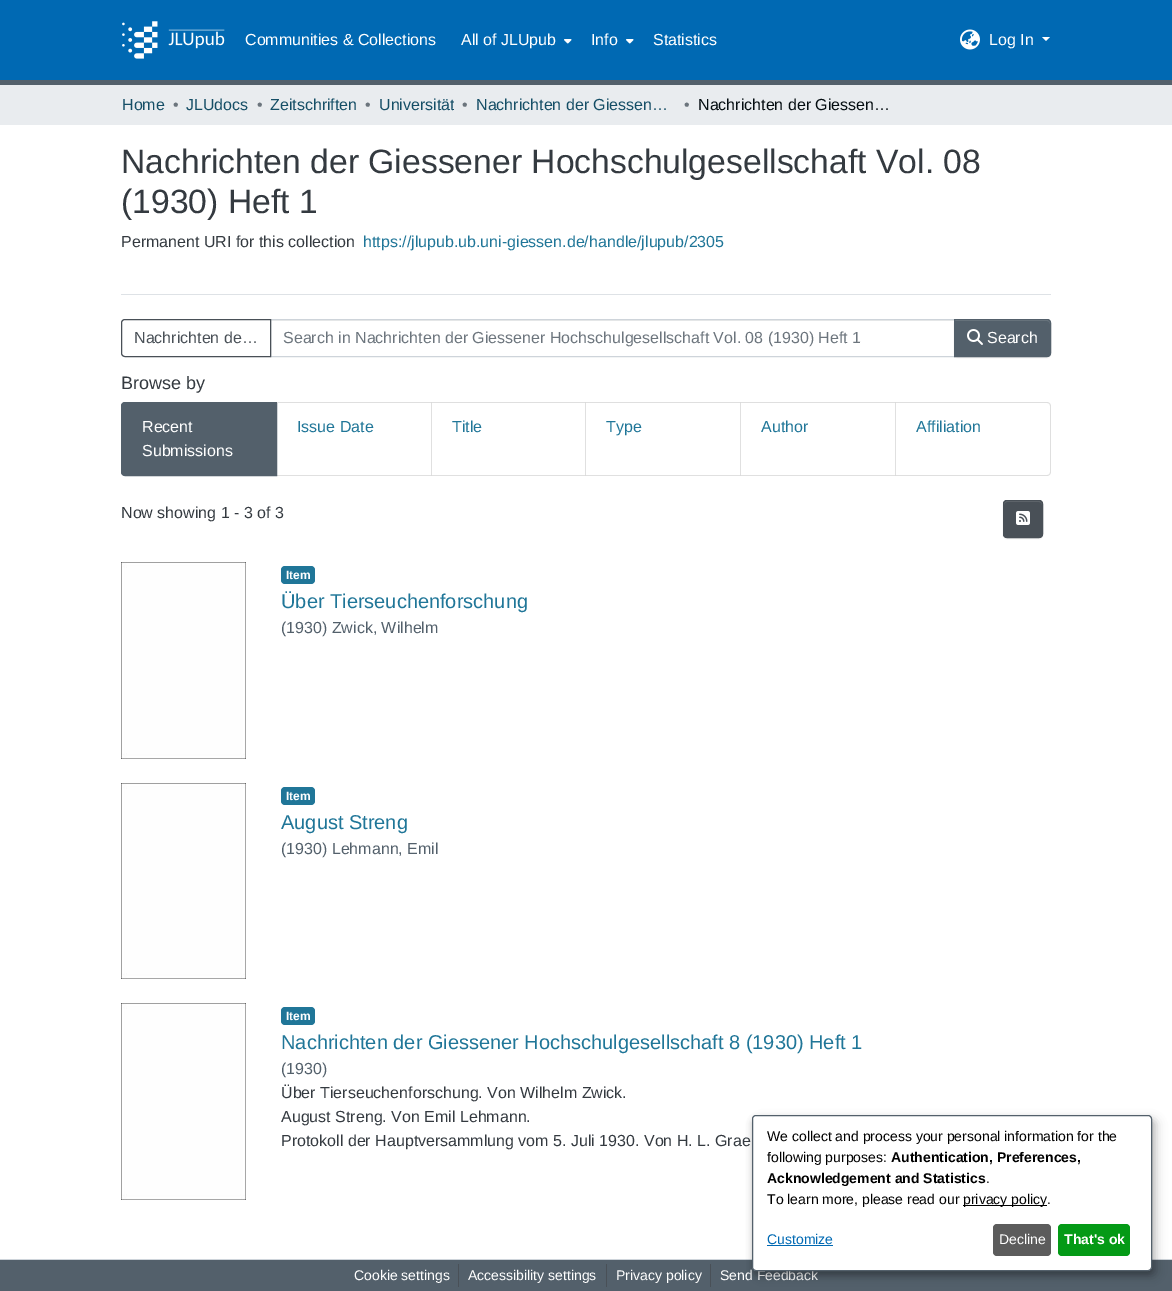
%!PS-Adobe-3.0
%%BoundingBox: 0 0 1172 1291
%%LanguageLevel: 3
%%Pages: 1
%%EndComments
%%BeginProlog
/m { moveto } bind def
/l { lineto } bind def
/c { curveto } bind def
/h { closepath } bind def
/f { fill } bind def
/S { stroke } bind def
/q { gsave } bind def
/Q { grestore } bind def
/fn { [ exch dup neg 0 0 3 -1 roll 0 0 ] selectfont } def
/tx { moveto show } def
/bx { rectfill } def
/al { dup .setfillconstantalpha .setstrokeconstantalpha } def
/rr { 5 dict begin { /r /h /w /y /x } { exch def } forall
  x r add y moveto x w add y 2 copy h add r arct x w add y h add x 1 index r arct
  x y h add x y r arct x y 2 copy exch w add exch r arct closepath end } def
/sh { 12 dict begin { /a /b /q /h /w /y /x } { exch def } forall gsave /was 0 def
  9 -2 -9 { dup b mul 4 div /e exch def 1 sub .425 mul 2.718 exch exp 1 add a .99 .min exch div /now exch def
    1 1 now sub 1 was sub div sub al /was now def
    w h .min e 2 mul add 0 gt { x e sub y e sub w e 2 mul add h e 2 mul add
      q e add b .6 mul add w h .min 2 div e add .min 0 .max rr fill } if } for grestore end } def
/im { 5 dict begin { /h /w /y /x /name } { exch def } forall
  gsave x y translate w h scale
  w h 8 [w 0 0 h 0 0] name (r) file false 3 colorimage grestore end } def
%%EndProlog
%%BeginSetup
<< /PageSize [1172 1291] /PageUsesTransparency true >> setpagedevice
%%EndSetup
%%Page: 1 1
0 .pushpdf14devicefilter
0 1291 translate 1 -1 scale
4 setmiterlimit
1 setgray
0 0 1172 1291 bx
0.325 0.376 0.42 setrgbcolor
0 80 1172 5 bx
0 0.412 0.702 setrgbcolor
0 0 1172 80 bx
(image0.raw) 122 21 103 38 im
/LiberationSans-Regular 16 fn
1 setgray
(Communities & Collections) 245 45 tx
(All of JLUpub) 461 45 tx
(image1.raw) 564 39 8 5 im
(Info) 591 45 tx
(image1.raw) 626 39 8 5 im
(Statistics) 653 45 tx
(image2.raw) 960 29 20 21 im
(Log In) 989 45 tx
1042 37 m 1050 37 l 1046 41 l h f
0.914 0.925 0.937 setrgbcolor
0 85 1172 40 bx
0.082 0.306 0.4 setrgbcolor
(Home) 122 110 tx
0.424 0.459 0.49 setrgbcolor
(•) 173 110 tx
0.082 0.306 0.4 setrgbcolor
(JLUdocs) 186 110 tx
0.424 0.459 0.49 setrgbcolor
(•) 257 110 tx
0.082 0.306 0.4 setrgbcolor
(Zeitschriften) 270 110 tx
0.424 0.459 0.49 setrgbcolor
(•) 365 110 tx
q
379 93 75 24 rectclip
0.082 0.306 0.4 setrgbcolor
(Universität) 379 110 tx
Q
(•) 462 110 tx
0.082 0.306 0.4 setrgbcolor
(Nachrichten der Giessen…) 476 110 tx
0.424 0.459 0.49 setrgbcolor
(•) 684 110 tx
0.016 0.051 0.067 setrgbcolor
(Nachrichten der Giessen…) 698 110 tx
0.871 0.886 0.902 setrgbcolor
121 294 930 1 bx
/LiberationSans-Regular 33.7 fn
0.204 0.227 0.251 setrgbcolor
(Nachrichten der Giessener Hochschulgesellschaft Vol. 08) 121 173 tx
(\(1930\) Heft 1) 121 213 tx
/LiberationSans-Regular 16 fn
(Permanent URI for this collection) 121 247 tx
0.125 0.463 0.596 setrgbcolor
(https://jlupub.ub.uni-giessen.de/handle/jlupub/2305) 363 247 tx
0.925 setgray
271 320 683 1 bx
0.808 0.831 0.855 setrgbcolor
270.5 319.5 684 37 rectstroke
0.286 0.314 0.341 setrgbcolor
125 319.5 m 270.5 319.5 l 270.5 356.5 l 125 356.5 l 123 356.5 121.5 355 121.5 353 c 121.5 323 l 121.5 321 123 319.5 125 319.5 c h S
(Nachrichten de…) 134 343 tx
0.424 0.459 0.49 setrgbcolor
(Search in Nachrichten der Giessener Hochschulgesellschaft Vol. 08 \(1930\) Heft 1) 283 343 tx
0 setgray
954 320 97 38 4 0.5 0.07 sh
0.325 0.376 0.42 setrgbcolor
954 319 m 1047 319 l 1049 319 1051 321 1051 323 c 1051 353 l 1051 355 1049 357 1047 357 c 954 357 l h f
0.427 0.471 0.506 setrgbcolor
955 321 m 1047 321 l 1049 321 1050 322 1050 324 c 1050 323 l 1050 321 1049 320 1047 320 c 955 320 l h f
0.325 0.376 0.42 setrgbcolor
954.5 319.5 m 1047 319.5 l 1049 319.5 1050.5 321 1050.5 323 c 1050.5 353 l 1050.5 355 1049 356.5 1047 356.5 c 954.5 356.5 l h S
(image3.raw) 967 329 16 16 im
1 setgray
(Search) 987 343 tx
/LiberationSans-Regular 18 fn
0.204 0.227 0.251 setrgbcolor
(Browse by) 121 389 tx
0.325 0.376 0.42 setrgbcolor
125 402.5 m 276.5 402.5 l 276.5 475.5 l 125 475.5 l 123 475.5 121.5 474 121.5 472 c 121.5 406 l 121.5 404 123 402.5 125 402.5 c h q f Q
S
/LiberationSans-Regular 16 fn
1 setgray
(Recent) 142 432 tx
(Submissions) 142 456 tx
0.875 setgray
277 402 m 432 402 l 431 403 l 277 403 l h f
0.12 al
0 setgray
432 402 m 432 476 l 431 475 l 431 403 l h f
432 476 m 277 476 l 277 475 l 431 475 l h f
1 al
0.125 0.463 0.596 setrgbcolor
(Issue Date) 297 432 tx
0.875 setgray
432 402 m 586 402 l 585 403 l 432 403 l h f
0.12 al
0 setgray
586 402 m 586 476 l 585 475 l 585 403 l h f
586 476 m 432 476 l 432 475 l 585 475 l h f
1 al
0.125 0.463 0.596 setrgbcolor
(Title) 452 432 tx
0.875 setgray
586 402 m 741 402 l 740 403 l 586 403 l h f
0.12 al
0 setgray
741 402 m 741 476 l 740 475 l 740 403 l h f
741 476 m 586 476 l 586 475 l 740 475 l h f
1 al
0.125 0.463 0.596 setrgbcolor
(Type) 606 432 tx
0.875 setgray
741 402 m 896 402 l 895 403 l 741 403 l h f
0.12 al
0 setgray
896 402 m 896 476 l 895 475 l 895 403 l h f
896 476 m 741 476 l 741 475 l 895 475 l h f
1 al
0.125 0.463 0.596 setrgbcolor
(Author) 761 432 tx
0.875 setgray
896 402 m 1047 402 l 1049 402 1051 404 1051 406 c 1051 472 l 1051 474 1049 476 1047 476 c 896 476 l h 896 403 m 1047 403 l 1049 403 1050 404 1050 406 c 1050 472 l 1050 474 1049 475 1047 475 c 896 475 l h eofill
0.125 0.463 0.596 setrgbcolor
(Affiliation) 916 432 tx
0.204 0.227 0.251 setrgbcolor
(Now showing 1 - 3 of 3) 121 518 tx
0 setgray
1003 501 40 38 4 0.5 0.07 sh
0.286 0.314 0.341 setrgbcolor
1003 500 40 38 4 rr f
0.392 0.416 0.439 setrgbcolor
1007 502 m 1039 502 l 1041 502 1042 503 1042 505 c 1042 500 1038 501 1033.5 501 c 1012.5 501 l 1008 501 1004 500 1004 505 c 1004 503 1005 502 1007 502 c h f
0.286 0.314 0.341 setrgbcolor
1003.5 500.5 39 37 3.5 rr S
(image4.raw) 1016 511 14 14 im
(image5.raw) 121 562 125 197 im
0.125 0.463 0.596 setrgbcolor
281 566 34 18 4 rr f
/LiberationSans-Bold 12 fn
1 setgray
(Item) 286 579 tx
/LiberationSans-Regular 20 fn
0.125 0.463 0.596 setrgbcolor
(Über Tierseuchenforschung) 281 608 tx
/LiberationSans-Regular 16 fn
0.325 0.376 0.42 setrgbcolor
(\(1930\) Zwick, Wilhelm) 281 633 tx
(image6.raw) 121 783 125 196 im
0.125 0.463 0.596 setrgbcolor
281 787 34 18 4 rr f
/LiberationSans-Bold 12 fn
1 setgray
(Item) 286 800 tx
/LiberationSans-Regular 20 fn
0.125 0.463 0.596 setrgbcolor
(August Streng) 281 829 tx
/LiberationSans-Regular 16 fn
0.325 0.376 0.42 setrgbcolor
(\(1930\) Lehmann, Emil) 281 854 tx
(image5.raw) 121 1003 125 197 im
0.125 0.463 0.596 setrgbcolor
281 1007 34 18 4 rr f
/LiberationSans-Bold 12 fn
1 setgray
(Item) 286 1020 tx
/LiberationSans-Regular 20 fn
0.125 0.463 0.596 setrgbcolor
(Nachrichten der Giessener Hochschulgesellschaft 8 \(1930\) Heft 1) 281 1049 tx
/LiberationSans-Regular 16 fn
0.325 0.376 0.42 setrgbcolor
(\(1930\)) 281 1074 tx
0.204 0.227 0.251 setrgbcolor
(Über Tierseuchenforschung. Von Wilhelm Zwick.) 281 1098 tx
(August Streng. Von Emil Lehmann.) 281 1122 tx
(Protokoll der Hauptversammlung vom 5. Juli 1930. Von H. L. Grae) 281 1146 tx
0.325 0.376 0.42 setrgbcolor
0 1260 1172 31 bx
0.808 0.831 0.855 setrgbcolor
0 1259 1172 1 bx
/LiberationSans-Regular 14 fn
1 setgray
(Cookie settings) 354 1280 tx
0.286 0.314 0.341 setrgbcolor
458 1264 1 23 bx
1 setgray
(Accessibility settings) 468 1280 tx
0.286 0.314 0.341 setrgbcolor
606 1264 1 23 bx
1 setgray
(Privacy policy) 616 1280 tx
0.286 0.314 0.341 setrgbcolor
710 1264 1 23 bx
1 setgray
(Send Feedback) 720 1280 tx
0 setgray
757 1120 400 156 4 5 0.19 sh
752 1119 400 156 4 3 0.2 sh
1 setgray
752.5 1115.5 399 155 3.5 rr q f Q
0.325 0.376 0.42 setrgbcolor
S
0 setgray
(We collect and process your personal information for the) 767 1141 tx
(following purposes:) 767 1162 tx
/LiberationSans-Bold 14 fn
(Authentication, Preferences,) 891 1162 tx
(Acknowledgement and Statistics) 767 1183 tx
/LiberationSans-Regular 14 fn
(.) 986 1183 tx
(To learn more, please read our) 767 1204 tx
963 1205 84 1 bx
(privacy policy.) 963 1204 tx
1 setgray
1047 1191 1 6 bx
0 0.412 0.702 setrgbcolor
(Customize) 767 1244 tx
767 1245 66 1 bx
0.361 setgray
993 1224 58 32 4 rr f
1 setgray
(Decline) 999 1244 tx
0.016 0.604 0.086 setrgbcolor
1058 1224 72 32 4 rr f
/LiberationSans-Bold 14 fn
1 setgray
(That's ok) 1064 1244 tx
.poppdf14devicefilter showpage
%%EOF
